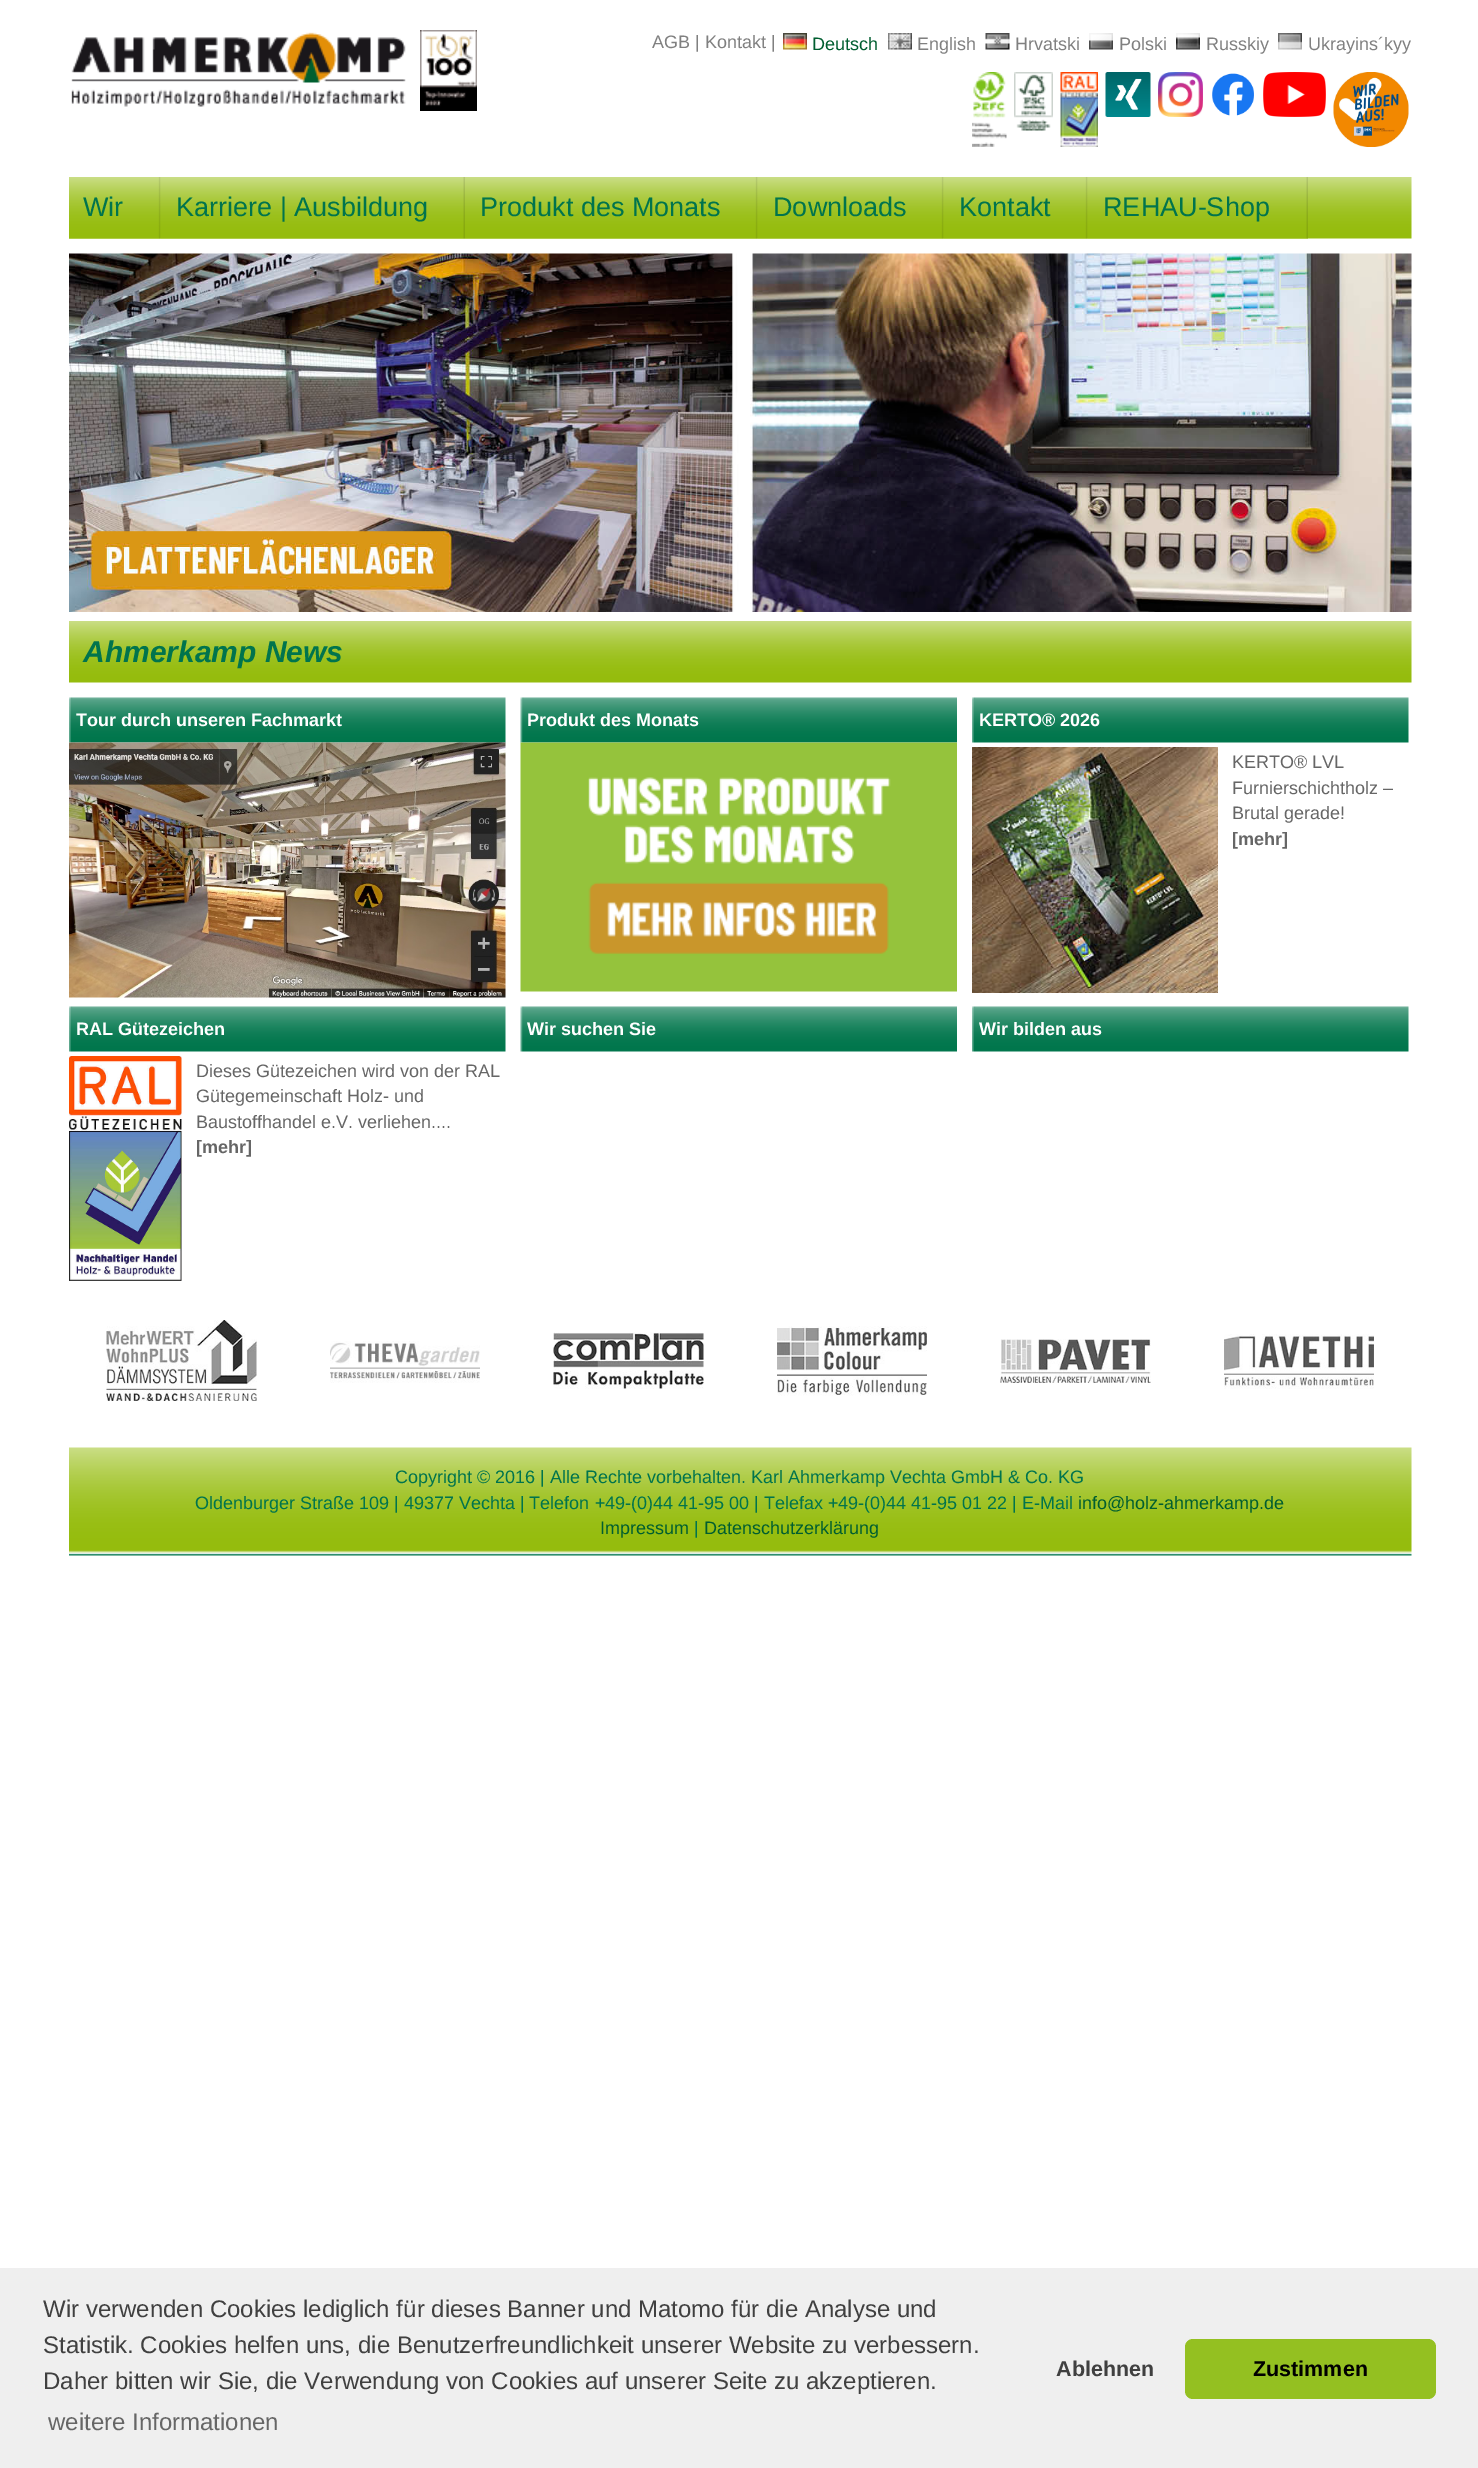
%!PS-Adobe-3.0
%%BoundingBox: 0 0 1478 2468
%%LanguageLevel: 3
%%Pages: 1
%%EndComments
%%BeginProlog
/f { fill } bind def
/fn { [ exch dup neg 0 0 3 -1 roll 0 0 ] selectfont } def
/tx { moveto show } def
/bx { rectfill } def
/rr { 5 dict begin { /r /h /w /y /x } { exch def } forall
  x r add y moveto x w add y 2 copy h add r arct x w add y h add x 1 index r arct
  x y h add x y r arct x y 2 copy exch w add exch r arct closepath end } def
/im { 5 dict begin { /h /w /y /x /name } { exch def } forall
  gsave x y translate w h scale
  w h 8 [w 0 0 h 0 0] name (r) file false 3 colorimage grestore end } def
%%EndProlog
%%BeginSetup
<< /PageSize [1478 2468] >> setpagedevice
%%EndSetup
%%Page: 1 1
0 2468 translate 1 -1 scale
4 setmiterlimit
1 setgray
0 0 1478 2468 bx
(image0.raw) 71 32 335 75 im
(image1.raw) 420 30 57 81 im
/LiberationSans-Regular 18 fn
0.502 setgray
(AGB | Kontakt |) 652 48 tx
(image2.raw) 783 33 24 17 im
0 0.369 0.188 setrgbcolor
(Deutsch) 812 50 tx
(image3.raw) 888 33 24 17 im
0.502 setgray
(English) 917 50 tx
(image4.raw) 985 33 25 17 im
(Hrvatski) 1015 50 tx
(image5.raw) 1089 33 24 17 im
(Polski) 1119 50 tx
(image6.raw) 1176 33 24 17 im
(Russkiy) 1206 50 tx
(image7.raw) 1278 33 24 17 im
(Ukrayins´kyy) 1308 50 tx
(image8.raw) 972 72 35 75 im
(image9.raw) 1014 72 39 59 im
(image10.raw) 1060 72 38 75 im
(image11.raw) 1105 72 46 45 im
(image12.raw) 1158 72 45 45 im
(image13.raw) 1212 73 42 43 im
(image14.raw) 1263 72 63 45 im
(image15.raw) 1333 72 76 75 im
(image16.raw) 69 177 1343 62 im
(image17.raw) 69 177 92 62 im
/LiberationSans-Regular 27 fn
0 0.455 0.302 setrgbcolor
(Wir) 83 216 tx
(image18.raw) 160 177 305 62 im
(Karriere | Ausbildung) 176 216 tx
(image19.raw) 465 177 293 62 im
(Produkt des Monats) 480 216 tx
(image20.raw) 757 177 187 62 im
(Downloads) 773 216 tx
(image21.raw) 943 177 145 62 im
(Kontakt) 959 216 tx
(image22.raw) 1087 177 221 62 im
(REHAU-Shop) 1103 216 tx
(image23.raw) 69 253 1343 359 im
(image16.raw) 69 621 1343 62 im
/LiberationSans-BoldItalic 30 fn
(Ahmerkamp News) 83 662 tx
(image24.raw) 69 697 437 46 im
/LiberationSans-Bold 18 fn
1 setgray
(Tour durch unseren Fachmarkt) 76 726 tx
(image25.raw) 69 742 437 256 im
(image26.raw) 520 697 437 46 im
(Produkt des Monats) 527 726 tx
(image27.raw) 520 742 437 250 im
(image24.raw) 972 697 437 46 im
(KERTO® 2026) 979 726 tx
(image28.raw) 972 747 246 246 im
/LiberationSans-Regular 18 fn
0.4 setgray
(KERTO® LVL) 1232 768 tx
(Furnierschichtholz –) 1232 794 tx
(Brutal gerade!) 1232 819 tx
/LiberationSans-Bold 18 fn
([mehr]) 1232 845 tx
(image24.raw) 69 1006 437 46 im
1 setgray
(RAL Gütezeichen) 76 1035 tx
(image29.raw) 69 1056 113 225 im
/LiberationSans-Regular 18 fn
0.4 setgray
(Dieses Gütezeichen wird von der RAL) 196 1077 tx
(Gütegemeinschaft Holz- und) 196 1102 tx
(Baustoffhandel e.V. verliehen....) 196 1128 tx
/LiberationSans-Bold 18 fn
([mehr]) 196 1153 tx
(image26.raw) 520 1006 437 46 im
1 setgray
(Wir suchen Sie) 527 1035 tx
(image24.raw) 972 1006 437 46 im
(Wir bilden aus) 979 1035 tx
(image30.raw) 106 1320 151 81 im
(image31.raw) 330 1341 150 42 im
(image32.raw) 553 1332 151 57 im
(image33.raw) 777 1326 150 70 im
(image34.raw) 1000 1339 151 44 im
(image35.raw) 1224 1334 150 55 im
(image36.raw) 69 1447 1343 109 im
/LiberationSans-Regular 18 fn
0 0.455 0.302 setrgbcolor
(Copyright © 2016 | Alle Rechte vorbehalten. Karl Ahmerkamp Vechta GmbH & Co. KG) 395 1483 tx
(Oldenburger Straße 109 | 49377 Vechta | Telefon +49-\(0\)44 41-95 00 | Telefax +49-\(0\)44 41-95 01 22 | E-Mail) 195 1509 tx
0 0.369 0.188 setrgbcolor
(info@holz-ahmerkamp.de) 1078 1509 tx
(Impressum) 600 1534 tx
0 0.455 0.302 setrgbcolor
(|) 694 1534 tx
0 0.369 0.188 setrgbcolor
(Datenschutzerklärung) 704 1534 tx
0.937 setgray
0 2268 1478 200 bx
/LiberationSans-Regular 24 fn
0.251 setgray
(Wir verwenden Cookies lediglich für dieses Banner und Matomo für die Analyse und) 43 2317 tx
(Statistik. Cookies helfen uns, die Benutzerfreundlichkeit unserer Website zu verbessern.) 43 2353 tx
(Daher bitten wir Sie, die Verwendung von Cookies auf unserer Seite zu akzeptieren.) 43 2389 tx
0.4 setgray
(weitere Informationen) 48 2430 tx
/LiberationSans-Bold 21.5 fn
0.251 setgray
(Ablehnen) 1056 2376 tx
0.58 0.753 0.129 setrgbcolor
1185 2339 251 60 8 rr f
0 setgray
(Zustimmen) 1253 2376 tx
showpage
%%EOF
